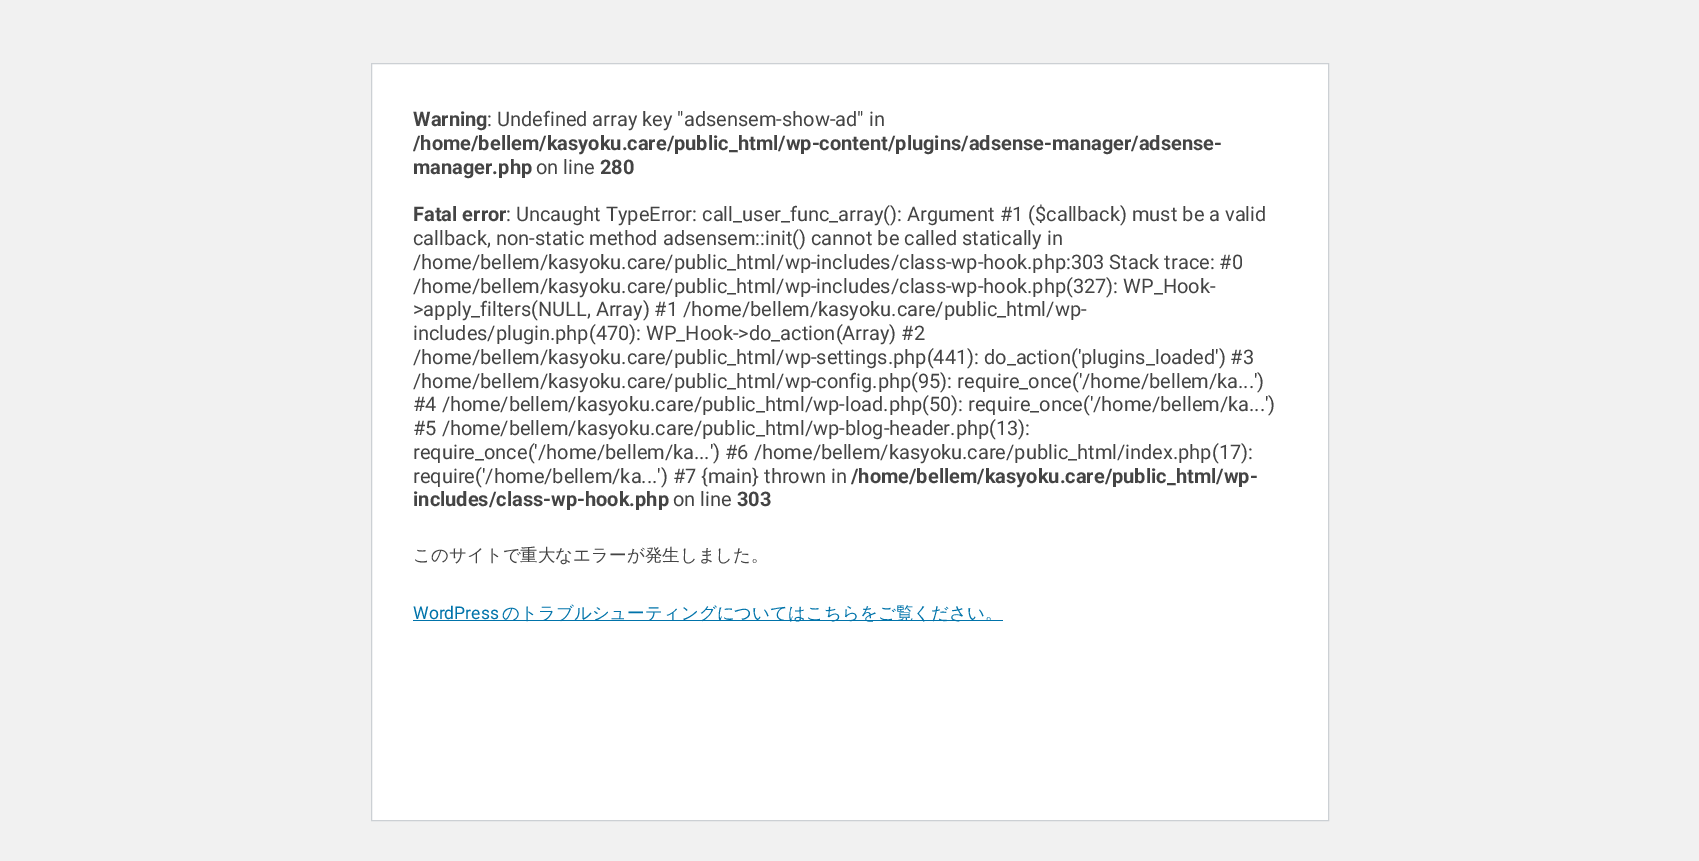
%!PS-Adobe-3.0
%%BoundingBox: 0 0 1699 861
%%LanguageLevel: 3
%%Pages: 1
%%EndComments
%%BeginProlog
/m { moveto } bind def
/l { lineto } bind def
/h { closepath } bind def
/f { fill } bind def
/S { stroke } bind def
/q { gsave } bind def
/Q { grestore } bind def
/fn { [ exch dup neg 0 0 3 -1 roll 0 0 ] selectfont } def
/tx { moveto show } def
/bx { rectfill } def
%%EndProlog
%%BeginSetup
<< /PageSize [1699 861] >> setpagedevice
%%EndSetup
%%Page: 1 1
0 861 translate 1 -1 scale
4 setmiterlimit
0.945 setgray
0 0 1699 861 bx
1 setgray
371.5 63.5 m 1328.5 63.5 l 1328.5 820.5 l 371.5 820.5 l h q f Q
0.8 0.816 0.831 setrgbcolor
S
/Roboto-Bold 20 fn
0.267 setgray
(Warning) 413 126 tx
/Roboto-Regular 20 fn
(: Undefined array key "adsensem-show-ad" in) 487 126 tx
/Roboto-Bold 20 fn
(/home/bellem/kasyoku.care/public_html/wp-content/plugins/adsense-manager/adsense-) 413 150 tx
(manager.php) 413 174 tx
/Roboto-Regular 20 fn
(on line) 536 174 tx
/Roboto-Bold 20 fn
(280) 600 174 tx
(Fatal error) 413 221 tx
/Roboto-Regular 20 fn
(: Uncaught TypeError: call_user_func_array\(\): Argument #1 \($callback\) must be a valid) 506 221 tx
(callback, non-static method adsensem::init\(\) cannot be called statically in) 413 245 tx
(/home/bellem/kasyoku.care/public_html/wp-includes/class-wp-hook.php:303 Stack trace: #0) 413 269 tx
(/home/bellem/kasyoku.care/public_html/wp-includes/class-wp-hook.php\(327\): WP_Hook-) 413 293 tx
(>apply_filters\(NULL, Array\) #1 /home/bellem/kasyoku.care/public_html/wp-) 413 316 tx
(includes/plugin.php\(470\): WP_Hook->do_action\(Array\) #2) 413 340 tx
(/home/bellem/kasyoku.care/public_html/wp-settings.php\(441\): do_action\('plugins_loaded'\) #3) 413 364 tx
(/home/bellem/kasyoku.care/public_html/wp-config.php\(95\): require_once\('/home/bellem/ka...'\)) 413 388 tx
(#4 /home/bellem/kasyoku.care/public_html/wp-load.php\(50\): require_once\('/home/bellem/ka...'\)) 413 411 tx
(#5 /home/bellem/kasyoku.care/public_html/wp-blog-header.php\(13\):) 413 435 tx
(require_once\('/home/bellem/ka...'\) #6 /home/bellem/kasyoku.care/public_html/index.php\(17\):) 413 459 tx
(require\('/home/bellem/ka...'\) #7 {main} thrown in) 413 483 tx
/Roboto-Bold 20 fn
(/home/bellem/kasyoku.care/public_html/wp-) 851 483 tx
(includes/class-wp-hook.php) 413 506 tx
/Roboto-Regular 20 fn
(on line) 673 506 tx
/Roboto-Bold 20 fn
(303) 737 506 tx
/WenQuanYiZenHei-Medium 17.5 fn
(このサイトで重大なエラーが発生しました。) 413 561 tx
/Roboto-Regular 17.5 fn
0 0.451 0.667 setrgbcolor
(WordPress) 413 619 tx
413 620 590 1 bx
/WenQuanYiZenHei-Medium 17.5 fn
(のトラブルシューティングについてはこちらをご覧ください。) 502 619 tx
showpage
%%EOF
